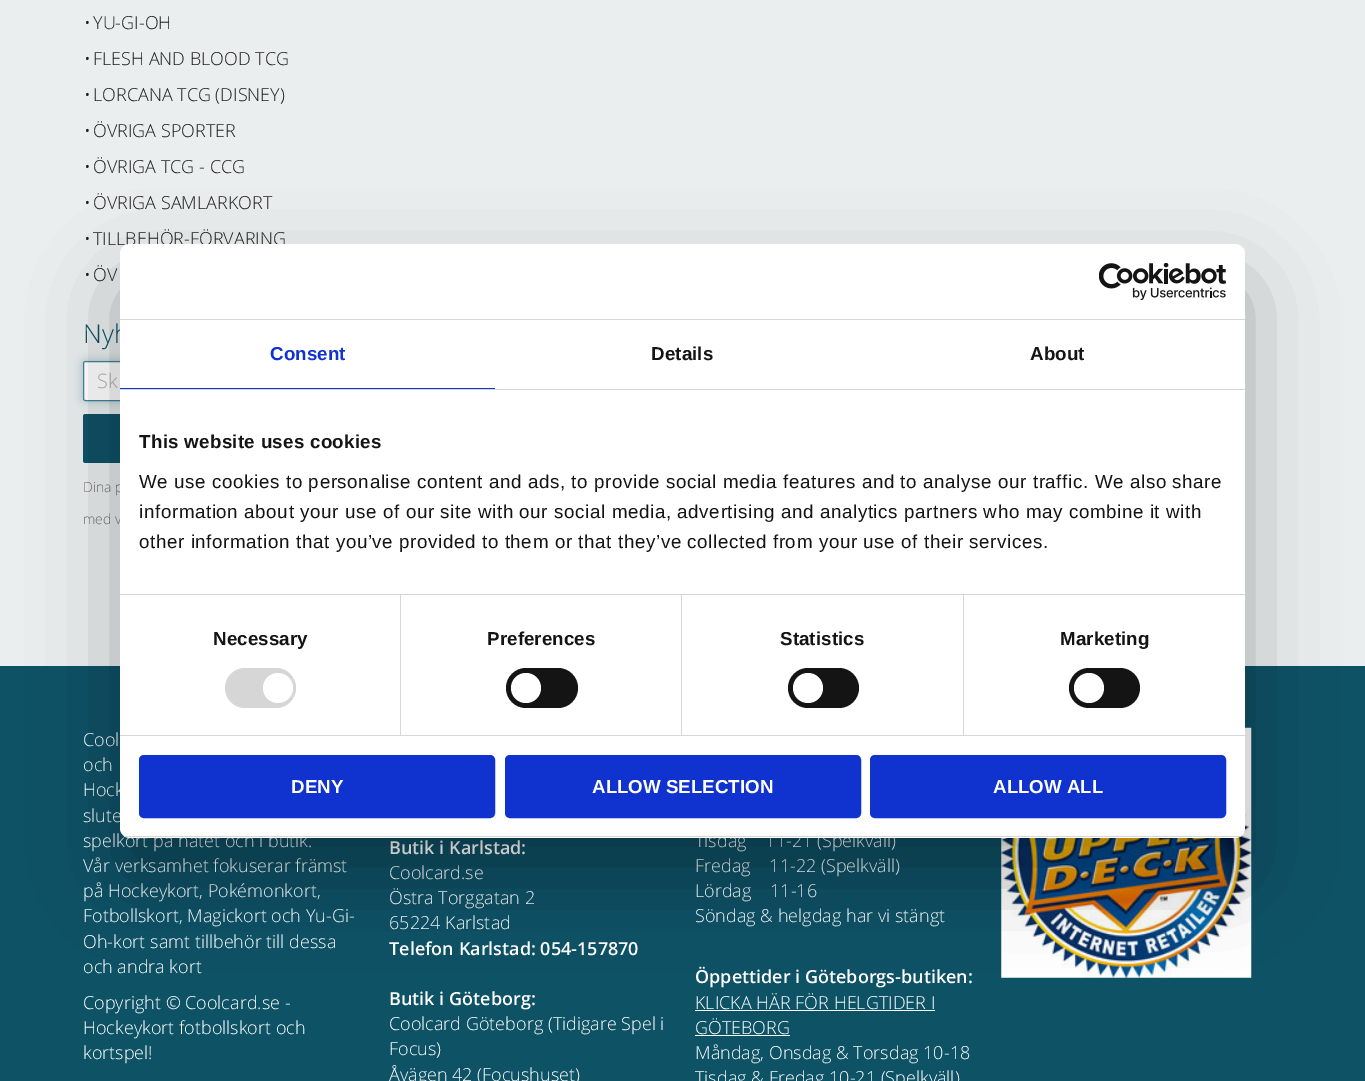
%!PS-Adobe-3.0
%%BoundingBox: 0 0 1365 1081
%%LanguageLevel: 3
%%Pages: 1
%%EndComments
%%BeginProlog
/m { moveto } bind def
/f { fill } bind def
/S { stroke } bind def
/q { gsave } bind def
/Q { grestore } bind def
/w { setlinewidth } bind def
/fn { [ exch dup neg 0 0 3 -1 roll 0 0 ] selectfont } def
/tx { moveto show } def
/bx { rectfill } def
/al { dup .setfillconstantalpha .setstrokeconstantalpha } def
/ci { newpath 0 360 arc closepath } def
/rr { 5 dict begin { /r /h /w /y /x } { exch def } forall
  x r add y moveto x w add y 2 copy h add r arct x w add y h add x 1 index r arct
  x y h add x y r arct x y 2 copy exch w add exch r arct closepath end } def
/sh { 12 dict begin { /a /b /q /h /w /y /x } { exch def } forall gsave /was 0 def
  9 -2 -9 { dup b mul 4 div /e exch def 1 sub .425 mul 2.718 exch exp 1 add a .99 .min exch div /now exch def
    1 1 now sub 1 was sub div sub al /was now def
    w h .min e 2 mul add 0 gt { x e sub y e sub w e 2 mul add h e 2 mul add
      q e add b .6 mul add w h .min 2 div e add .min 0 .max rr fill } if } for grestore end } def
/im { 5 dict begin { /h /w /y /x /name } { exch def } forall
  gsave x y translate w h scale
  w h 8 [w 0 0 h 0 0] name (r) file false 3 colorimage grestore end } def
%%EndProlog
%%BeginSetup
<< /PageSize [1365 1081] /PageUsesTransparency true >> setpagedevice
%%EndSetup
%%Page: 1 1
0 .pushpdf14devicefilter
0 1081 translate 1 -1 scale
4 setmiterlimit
0.918 0.933 0.937 setrgbcolor
0 0 1365 1081 bx
/OpenSans-Light 18 fn
0.118 setgray
(•) 84 29 tx
(YU-GI-OH) 93 29 tx
(•) 84 65 tx
(FLESH AND BLOOD TCG) 93 65 tx
(•) 84 101 tx
(LORCANA TCG \(DISNEY\)) 93 101 tx
(•) 84 137 tx
(ÖVRIGA SPORTER) 93 137 tx
(•) 84 173 tx
(ÖVRIGA TCG - CCG) 93 173 tx
(•) 84 209 tx
(ÖVRIGA SAMLARKORT) 93 209 tx
(•) 84 245 tx
(TILLBEHÖR-FÖRVARING) 93 245 tx
(•) 84 281 tx
(ÖV) 93 281 tx
0.055 0.322 0.4 setrgbcolor
83 361 263 40 2.5 5 0.3 sh
/OpenSans-Light 26 fn
(Nyh) 83 343 tx
1 setgray
83.5 361.5 262 39 2 rr q f Q
0.251 0.522 0.604 setrgbcolor
S
/OpenSans-Light 20 fn
0.706 setgray
(Sk) 97 388 tx
0.055 0.322 0.4 setrgbcolor
83 414 263 49 2.5 rr f
/OpenSans-Light 14 fn
0.439 0.443 0.447 setrgbcolor
(Dina p) 83 492 tx
(med v) 83 524 tx
0.055 0.322 0.4 setrgbcolor
0 666 1365 415 bx
/OpenSans-Light 18 fn
1 setgray
(Cool) 83 746 tx
(och) 83 771 tx
(Hock) 83 796 tx
(slute) 83 822 tx
(spelkort på nätet och i butik.) 83 847 tx
(Vår verksamhet fokuserar främst) 83 872 tx
(på Hockeykort, Pokémonkort,) 83 897 tx
(Fotbollskort, Magickort och Yu-Gi-) 83 922 tx
(Oh-kort samt tillbehör till dessa) 83 948 tx
(och andra kort) 83 973 tx
(Copyright © Coolcard.se -) 83 1009 tx
(Hockeykort fotbollskort och) 83 1034 tx
(kortspel!) 83 1059 tx
/OpenSans-SemiBold 18 fn
(Butik i Karlstad:) 389 854 tx
/OpenSans-Light 18 fn
(Coolcard.se) 389 879 tx
(Östra Torggatan 2) 389 904 tx
(65224 Karlstad) 389 929 tx
/OpenSans-SemiBold 18 fn
(Telefon Karlstad: 054-157870) 389 955 tx
(Butik i Göteborg:) 389 1005 tx
/OpenSans-Light 18 fn
(Coolcard Göteborg \(Tidigare Spel i) 389 1030 tx
(Focus\)) 389 1055 tx
(Åvägen 42 \(Focushuset\)) 389 1081 tx
(Tisdag    11-21 \(Spelkväll\)) 695 847 tx
(Fredag    11-22 \(Spelkväll\)) 695 872 tx
(Lördag    11-16) 695 897 tx
(Söndag & helgdag har vi stängt) 695 922 tx
/OpenSans-SemiBold 18 fn
(Öppettider i Göteborgs-butiken:) 695 983 tx
/OpenSans-Light 18 fn
(KLICKA HÄR FÖR HELGTIDER I) 695 1009 tx
695 1010 240 1 bx
(GÖTEBORG) 695 1034 tx
695 1035 95 1 bx
(Måndag, Onsdag & Torsdag 10-18) 695 1059 tx
(Tisdag & Fredag 10-21 \(Spelkväll\)) 695 1084 tx
(image0.raw) 1001 727 251 251 im
0 setgray
120 284 1125 594 10 42.5 0.3 sh
1 setgray
120 244 1125 594 10 rr f
0.839 setgray
120 319 1125 1 bx
(image1.raw) 1099 263 127 37 im
120 389 1125 1 bx
0.063 0.196 0.812 setrgbcolor
120 388 375 1 bx
/LiberationSans-Bold 18.75 fn
270 360 m 0.1 0 (Consent) ashow
0.078 setgray
651 360 m 0.1 0 (Details) ashow
1030 360 m 0.1 0 (About) ashow
0.839 setgray
120 594 1125 1 bx
0.078 setgray
139 448 m 0.3 0 (This website uses cookies) ashow
/LiberationSans-Regular 18.75 fn
139 488 m 0.62 0 (We use cookies to personalise content and ads, to provide social media features and to analyse our traffic. We also share) ashow
139 518 m 0.62 0 (information about your use of our site with our social media, advertising and analytics partners who may combine it with) ashow
139 548 m 0.62 0 (other information that you’ve provided to them or that they’ve collected from your use of their services.) ashow
0.839 setgray
120 735 1125 1 bx
400 595 1 140 bx
/LiberationSans-Bold 18.75 fn
0.078 setgray
213 645 m 0.1 0 (Necessary) ashow
0.839 setgray
225 668 71 40 20 rr f
1 setgray
278 688 15 ci f
0.839 setgray
681 595 1 140 bx
0.078 setgray
487 645 m 0.1 0 (Preferences) ashow
506 668 72 40 20 rr f
1 setgray
526 688 15 ci f
0.839 setgray
963 595 1 140 bx
0.078 setgray
780 645 m 0.1 0 (Statistics) ashow
788 668 71 40 20 rr f
1 setgray
808 688 15 ci f
0.078 setgray
1060 645 m 0.1 0 (Marketing) ashow
1069 668 71 40 20 rr f
1 setgray
1089 688 15 ci f
q
120 244 1125 594 10 rr clip newpath
0.839 setgray
120 836 1125 1 bx
Q
0.063 0.196 0.812 setrgbcolor
140.5 756.5 353 60 3.5 rr q f Q
3 w
S
1 setgray
(DENY) 291 793 tx
0.063 0.196 0.812 setrgbcolor
506.5 756.5 353 60 3.5 rr q f Q
S
1 setgray
(ALLOW SELECTION) 592 793 tx
0.063 0.196 0.812 setrgbcolor
871.5 756.5 353 60 3.5 rr q f Q
S
1 setgray
(ALLOW ALL) 993 793 tx
.poppdf14devicefilter showpage
%%EOF
